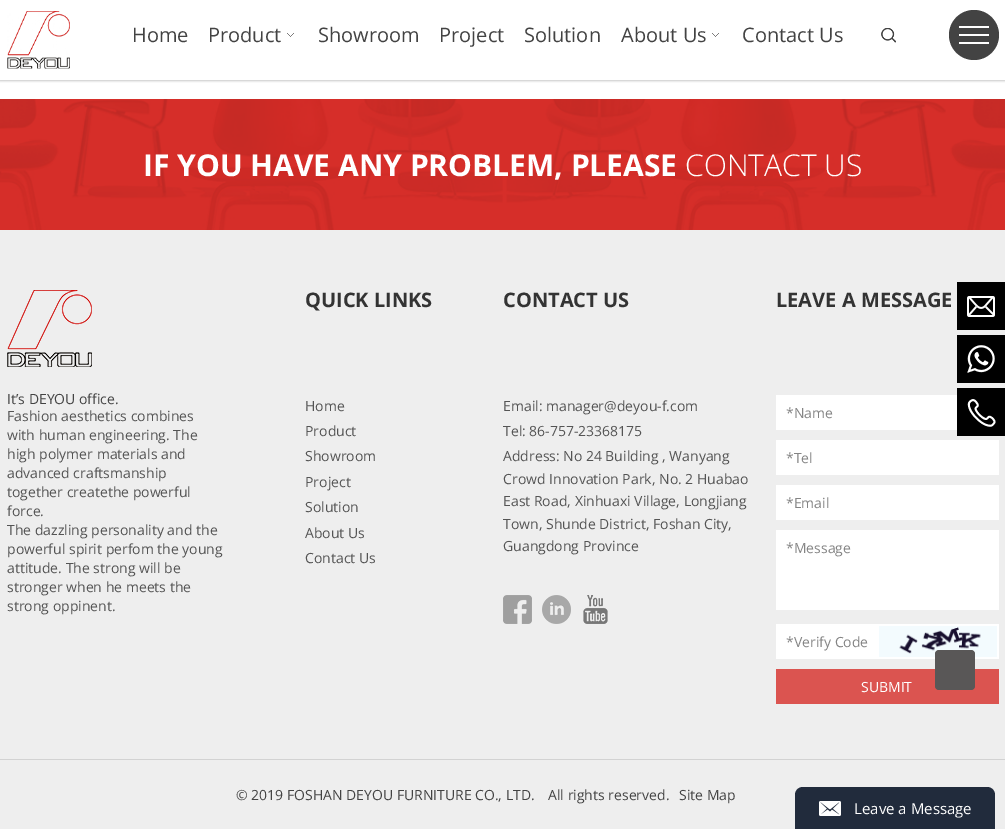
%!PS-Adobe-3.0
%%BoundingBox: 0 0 1005 829
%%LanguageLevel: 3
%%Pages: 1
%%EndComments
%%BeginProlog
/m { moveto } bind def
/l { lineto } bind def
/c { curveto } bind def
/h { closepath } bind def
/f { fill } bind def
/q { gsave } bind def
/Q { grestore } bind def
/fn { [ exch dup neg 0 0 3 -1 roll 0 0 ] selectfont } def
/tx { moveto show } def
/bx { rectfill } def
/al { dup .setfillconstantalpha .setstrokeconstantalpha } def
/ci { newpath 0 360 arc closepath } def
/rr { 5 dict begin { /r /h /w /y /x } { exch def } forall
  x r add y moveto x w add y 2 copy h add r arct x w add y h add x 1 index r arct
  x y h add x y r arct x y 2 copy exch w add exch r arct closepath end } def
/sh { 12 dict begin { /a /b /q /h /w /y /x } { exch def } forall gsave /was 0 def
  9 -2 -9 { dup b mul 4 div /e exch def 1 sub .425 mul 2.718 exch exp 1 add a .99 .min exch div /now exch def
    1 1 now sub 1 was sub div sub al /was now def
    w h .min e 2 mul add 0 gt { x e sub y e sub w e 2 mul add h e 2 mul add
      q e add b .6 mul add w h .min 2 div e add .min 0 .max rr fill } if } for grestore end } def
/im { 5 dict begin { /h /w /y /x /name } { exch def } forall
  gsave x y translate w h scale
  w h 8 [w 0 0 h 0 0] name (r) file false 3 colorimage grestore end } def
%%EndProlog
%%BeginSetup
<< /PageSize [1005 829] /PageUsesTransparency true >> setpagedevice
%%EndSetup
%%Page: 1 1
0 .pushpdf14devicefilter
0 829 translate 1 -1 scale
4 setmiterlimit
1 setgray
0 0 1005 829 bx
q
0 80 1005 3 rectclip
0.176 setgray
0 0 1005 80 0 1.5 0.45 sh
Q
(image0.raw) 7 11 63 58 im
/OpenSans-Regular 20 fn
0.263 setgray
(Home) 132 42 tx
(Product) 208 42 tx
(image1.raw) 287 33 7 4 im
(Showroom) 318 42 tx
(Project) 439 42 tx
(Solution) 524 42 tx
(About Us) 621 42 tx
(image1.raw) 712 33 7 4 im
(Contact Us) 742 42 tx
(image2.raw) 881 28 15 15 im
974 35 25 ci f
(image3.raw) 959 26 30 18 im
0.933 setgray
0 230 1005 599 bx
(image4.raw) 0 99 1005 131 im
/OpenSans-Bold 30 fn
1 setgray
(IF YOU HAVE ANY PROBLEM, PLEASE) 143 176 tx
/OpenSans-Light 30 fn
(CONTACT US) 685 176 tx
(image5.raw) 7 290 85 77 im
/OpenSans-Regular 14 fn
0.263 setgray
(It’s DEYOU office.) 7 404 tx
0.329 setgray
(Fashion aesthetics combines) 7 421 tx
(with human engineering. The) 7 440 tx
(high polymer materials and) 7 459 tx
(advanced craftsmanship) 7 478 tx
(together createthe powerful) 7 497 tx
(force.) 7 516 tx
(The dazzling personality and the) 7 535 tx
(powerful spirit perfom the young) 7 554 tx
(attitude. The strong will be) 7 573 tx
(stronger when he meets the) 7 592 tx
(strong oppinent.) 7 611 tx
/OpenSans-Bold 20 fn
0.2 setgray
(QUICK LINKS) 305 307 tx
/OpenSans-Regular 14 fn
0.329 setgray
(Home) 305 411 tx
(Product) 305 436 tx
(Showroom) 305 461 tx
(Project) 305 487 tx
(Solution) 305 512 tx
(About Us) 305 538 tx
(Contact Us) 305 563 tx
/OpenSans-Bold 20 fn
0.2 setgray
(CONTACT US) 503 307 tx
/OpenSans-Regular 14 fn
0.329 setgray
(Email: manager@deyou-f.com) 503 411 tx
(Tel: 86-757-23368175) 503 436 tx
(Address: No 24 Building , Wanyang) 503 461 tx
(Crowd Innovation Park, No. 2 Huabao) 503 484 tx
(East Road, Xinhuaxi Village, Longjiang) 503 506 tx
(Town, Shunde District, Foshan City,) 503 529 tx
(Guangdong Province) 503 551 tx
(image6.raw) 503 595 29 29 im
(image7.raw) 542 595 29 29 im
(image8.raw) 583 595 25 29 im
/OpenSans-Bold 20 fn
0.2 setgray
(LEAVE A MESSAGE) 776 307 tx
1 setgray
776 395 181 35 bx
/OpenSans-Regular 14 fn
0.518 setgray
(*Name) 786 418 tx
1 setgray
776 440 223 35 bx
0.518 setgray
(*Tel) 786 463 tx
1 setgray
776 485 223 35 bx
0.518 setgray
(*Email) 786 508 tx
1 setgray
776 530 223 80 bx
0.518 setgray
(*Message) 786 553 tx
1 setgray
776 624 223 35 bx
0.518 setgray
(*Verify Code) 786 647 tx
(image9.raw) 879 626 118 31 im
0.859 0.329 0.314 setrgbcolor
776 669 223 35 bx
1 setgray
(SUBMIT) 861 692 tx
0.824 setgray
0 759 1005 1 bx
0.263 setgray
(© 2019 FOSHAN DEYOU FURNITURE CO., LTD.) 236 800 tx
(All rights reserved.) 548 800 tx
(Site Map) 679 800 tx
0 setgray
957 282 48 48 bx
(image10.raw) 967 296 28 21 im
957 335 48 48 bx
(image11.raw) 967 345 28 28 im
957 388 48 48 bx
(image12.raw) 967 399 29 28 im
0.349 0.341 0.341 setrgbcolor
935 650 40 40 4 rr f
0.129 0.169 0.235 setrgbcolor
803 787 m 987 787 l 991.5 787 995 790.5 995 795 c 995 829 l 795 829 l 795 795 l 795 790.5 798.5 787 803 787 c h f
(image13.raw) 819 801 22 15 im
/OpenSans-Regular 15 fn
1 setgray
(Leave a Message) 854 814 tx
.poppdf14devicefilter showpage
%%EOF
